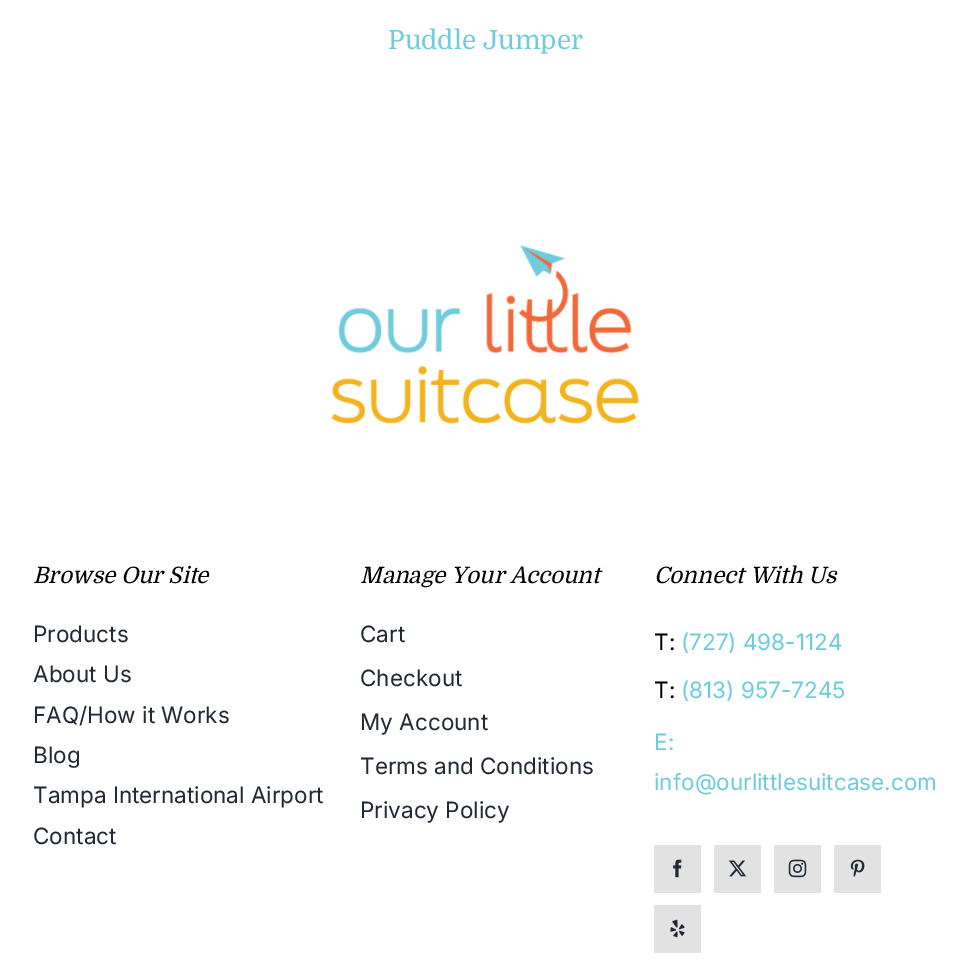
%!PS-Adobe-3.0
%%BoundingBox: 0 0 970 965
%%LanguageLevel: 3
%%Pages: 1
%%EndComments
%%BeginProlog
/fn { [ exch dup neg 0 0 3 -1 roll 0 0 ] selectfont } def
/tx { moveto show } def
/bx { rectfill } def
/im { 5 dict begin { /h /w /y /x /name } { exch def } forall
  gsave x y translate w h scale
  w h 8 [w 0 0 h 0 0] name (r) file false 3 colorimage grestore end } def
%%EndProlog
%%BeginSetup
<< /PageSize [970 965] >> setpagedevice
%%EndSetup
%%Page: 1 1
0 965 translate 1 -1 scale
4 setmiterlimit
1 setgray
0 0 970 965 bx
/Domine-Regular 26.25 fn
0.435 0.8 0.863 setrgbcolor
(Puddle Jumper) 388 49 tx
(image0.raw) 331 244 308 180 im
/Domine-Italic 22.5 fn
0 setgray
(Browse Our Site) 33 583 tx
/Inter-Regular 22.5 fn
0.129 0.161 0.204 setrgbcolor
(Products) 33 642 tx
(About Us) 33 682 tx
(FAQ/How it Works) 33 723 tx
(Blog) 33 763 tx
(Tampa International Airport) 33 803 tx
(Contact) 33 844 tx
/Domine-Italic 22.5 fn
0 setgray
(Manage Your Account) 360 583 tx
/Inter-Regular 22.5 fn
0.129 0.161 0.204 setrgbcolor
(Cart) 360 642 tx
(Checkout) 360 686 tx
(My Account) 360 730 tx
(Terms and Conditions) 360 774 tx
(Privacy Policy) 360 818 tx
/Domine-Italic 22.5 fn
0 setgray
(Connect With Us) 654 583 tx
/Inter-Regular 22.5 fn
(T:) 654 650 tx
0.435 0.8 0.863 setrgbcolor
(\(727\) 498-1124) 681 650 tx
0 setgray
(T:) 654 698 tx
0.435 0.8 0.863 setrgbcolor
(\(813\) 957-7245) 681 698 tx
(E:) 654 750 tx
(info@ourlittlesuitcase.com) 654 790 tx
0.886 setgray
654 845 47 48 bx
(image1.raw) 673 859 9 19 im
714 845 47 48 bx
(image2.raw) 728 860 19 17 im
774 845 47 48 bx
(image3.raw) 788 859 19 19 im
834 845 47 48 bx
(image4.raw) 850 859 15 18 im
654 905 47 48 bx
(image5.raw) 670 919 15 19 im
showpage
%%EOF
